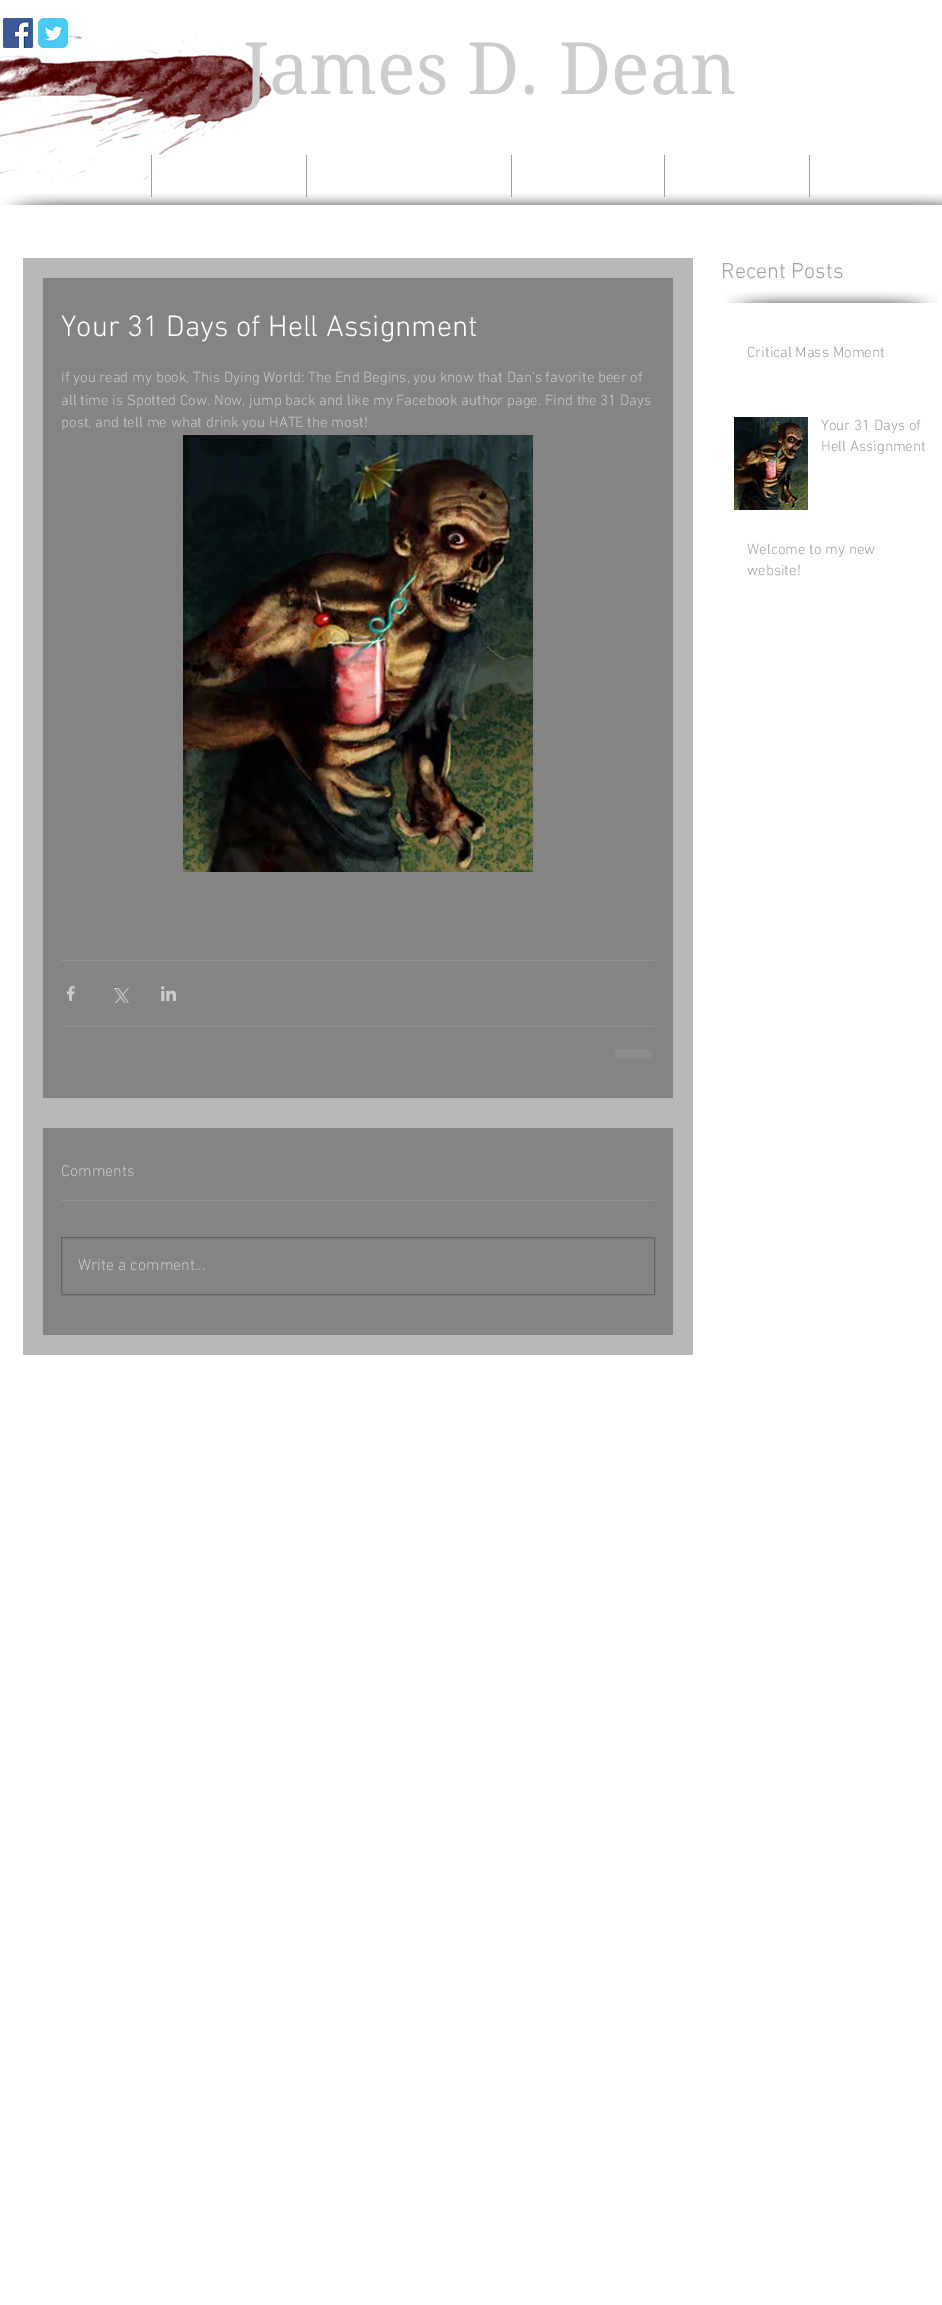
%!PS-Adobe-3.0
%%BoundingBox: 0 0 942 2305
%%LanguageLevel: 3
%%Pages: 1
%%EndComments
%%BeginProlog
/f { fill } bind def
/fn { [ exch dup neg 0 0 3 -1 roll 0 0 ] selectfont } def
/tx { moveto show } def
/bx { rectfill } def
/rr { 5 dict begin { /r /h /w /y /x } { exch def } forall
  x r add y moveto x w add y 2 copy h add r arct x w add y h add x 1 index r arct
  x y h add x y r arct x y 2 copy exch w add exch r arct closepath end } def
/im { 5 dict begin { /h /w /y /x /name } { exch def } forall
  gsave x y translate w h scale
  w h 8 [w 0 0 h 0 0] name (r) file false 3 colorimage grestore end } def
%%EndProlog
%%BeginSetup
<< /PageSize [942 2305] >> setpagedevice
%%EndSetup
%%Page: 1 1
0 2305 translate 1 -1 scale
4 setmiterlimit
1 setgray
0 0 942 2305 bx
(image2.raw) 0 33 272 147 im
(image0.raw) 3 18 30 30 im
(image1.raw) 38 18 30 30 im
/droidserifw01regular-Regular 72 fn
0.8 setgray
(James D. Dean) 243 94 tx
(image4.raw) 98 194 784 11 im
0.627 0.627 0.624 setrgbcolor
151 155 1 42 bx
306 155 1 42 bx
511 155 1 42 bx
664 155 1 42 bx
809 155 1 42 bx
(image3.raw) 1 194 97 11 im
(image5.raw) 882 194 60 11 im
/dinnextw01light-Light 22 fn
(Recent Posts) 721 278 tx
(image3.raw) 724 292 97 11 im
(image6.raw) 821 292 20 11 im
(image7.raw) 841 292 97 11 im
0.722 setgray
23 258 670 1097 bx
0.518 setgray
43 278 630 820 bx
/dinnextw01light-Light 30 fn
1 setgray
(Your 31 Days of Hell Assignment) 61 336 tx
/dinnextw01light-Light 15 fn
0.8 setgray
(If you read my book, This Dying World: The End Begins, you know that Dan's favorite beer of) 61 382 tx
(all time is Spotted Cow. Now, jump back and like my Facebook author page. Find the 31 Days) 61 405 tx
(post, and tell me what drink you HATE the most!) 61 427 tx
(image8.raw) 183 435 350 437 im
0.573 setgray
61 960 594 1 bx
(image9.raw) 66 986 9 15 im
(image10.raw) 114 988 15 15 im
(image11.raw) 161 986 15 15 im
61 1026 594 1 bx
0.553 setgray
615 1049 37 10 5 rr f
0.518 setgray
43 1128 630 207 bx
/dinnextw01light-Light 16 fn
0.8 setgray
(Comments) 61 1176 tx
0.573 setgray
61 1200 594 1 bx
0.388 setgray
61.5 1237.5 593 57 rectstroke
0.8 setgray
(Write a comment...) 78 1270 tx
/dinnextw01light-Light 15 fn
0.627 0.627 0.624 setrgbcolor
(Critical Mass Moment) 747 357 tx
(image12.raw) 734 417 74 93 im
(Your 31 Days of) 821 430 tx
(Hell Assignment) 821 451 tx
(Welcome to my new) 747 554 tx
(website!) 747 575 tx
showpage
%%EOF
